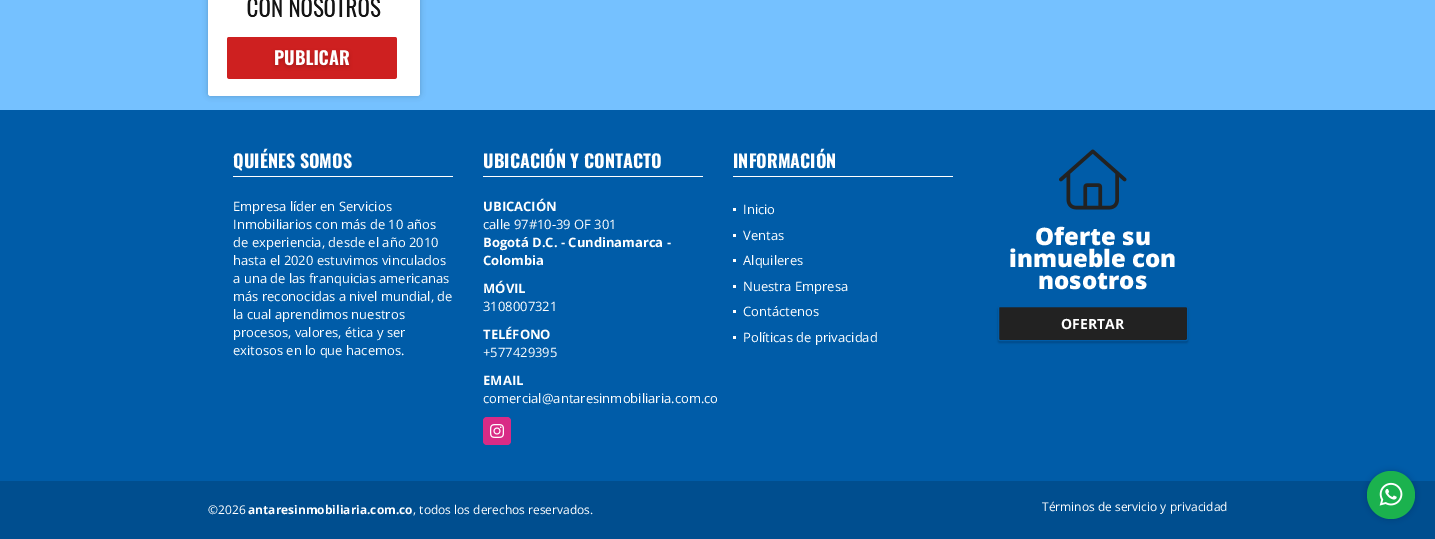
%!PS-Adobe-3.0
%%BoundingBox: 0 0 1435 539
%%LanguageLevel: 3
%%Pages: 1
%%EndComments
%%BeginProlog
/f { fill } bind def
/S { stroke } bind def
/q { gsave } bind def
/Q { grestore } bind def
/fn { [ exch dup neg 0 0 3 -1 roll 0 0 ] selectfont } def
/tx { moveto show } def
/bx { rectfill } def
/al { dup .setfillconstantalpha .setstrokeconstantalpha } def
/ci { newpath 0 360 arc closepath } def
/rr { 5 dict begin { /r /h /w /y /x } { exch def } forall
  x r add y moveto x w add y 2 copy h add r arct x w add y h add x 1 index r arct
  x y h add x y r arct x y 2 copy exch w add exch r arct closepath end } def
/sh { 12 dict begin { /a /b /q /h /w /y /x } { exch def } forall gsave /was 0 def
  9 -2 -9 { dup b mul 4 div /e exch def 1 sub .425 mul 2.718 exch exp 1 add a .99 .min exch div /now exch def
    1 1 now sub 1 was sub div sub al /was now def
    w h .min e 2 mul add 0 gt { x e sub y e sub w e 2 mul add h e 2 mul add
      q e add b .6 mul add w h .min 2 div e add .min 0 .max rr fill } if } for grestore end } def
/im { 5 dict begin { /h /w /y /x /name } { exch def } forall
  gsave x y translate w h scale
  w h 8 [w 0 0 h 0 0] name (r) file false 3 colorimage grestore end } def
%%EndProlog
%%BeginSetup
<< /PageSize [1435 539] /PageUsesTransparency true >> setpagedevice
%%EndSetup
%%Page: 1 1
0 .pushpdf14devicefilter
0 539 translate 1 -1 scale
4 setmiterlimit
0.459 0.757 1 setrgbcolor
0 0 1435 539 bx
0 setgray
208 -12 212 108 3 3 0.2 sh
(image0.raw) 208 0 212 96 im
0 0.361 0.659 setrgbcolor
0 110 1435 371 bx
1 setgray
233 176 220 1 bx
/Oswald-Bold 18 fn
(QUIÉNES SOMOS) 233 168 tx
/OpenSans-Regular 13 fn
(Empresa líder en Servicios) 233 211 tx
(Inmobiliarios con más de 10 años) 233 229 tx
(de experiencia, desde el año 2010) 233 247 tx
(hasta el 2020 estuvimos vinculados) 233 265 tx
(a una de las franquicias americanas) 233 283 tx
(más reconocidas a nivel mundial, de) 233 301 tx
(la cual aprendimos nuestros) 233 319 tx
(procesos, valores, ética y ser) 233 337 tx
(exitosos en lo que hacemos.) 233 355 tx
483 176 220 1 bx
/Oswald-Bold 18 fn
(UBICACIÓN Y CONTACTO) 483 168 tx
/OpenSans-Bold 13 fn
(UBICACIÓN) 483 211 tx
/OpenSans-Regular 13 fn
(calle 97#10-39 OF 301) 483 229 tx
/OpenSans-Bold 13 fn
(Bogotá D.C. - Cundinamarca -) 483 247 tx
(Colombia) 483 265 tx
(MÓVIL) 483 293 tx
/OpenSans-Regular 13 fn
(3108007321) 483 311 tx
/OpenSans-Bold 13 fn
(TELÉFONO) 483 339 tx
/OpenSans-Regular 13 fn
(+577429395) 483 357 tx
/OpenSans-Bold 13 fn
(EMAIL) 483 385 tx
/OpenSans-Regular 13 fn
(comercial@antaresinmobiliaria.com.co) 483 403 tx
0.851 0.169 0.525 setrgbcolor
483 417 28 28 4 rr f
(image1.raw) 490 424 14 14 im
1 setgray
733 176 220 1 bx
/Oswald-Bold 18 fn
(INFORMACIÓN) 733 168 tx
733 208 3 3 bx
/OpenSans-Regular 13 fn
(Inicio) 743 214 tx
733 234 3 3 bx
(Ventas) 743 240 tx
733 259 3 3 bx
(Alquileres) 743 265 tx
733 285 3 3 bx
(Nuestra Empresa) 743 291 tx
733 310 3 3 bx
(Contáctenos) 743 316 tx
733 336 3 3 bx
(Políticas de privacidad) 743 342 tx
(image2.raw) 1059 149 68 61 im
/OpenSans-ExtraBold 24 fn
(Oferte su) 1035 245 tx
(inmueble con) 1009 267 tx
(nosotros) 1038 289 tx
0 setgray
998 308 190 35 2 1 0.2 sh
0.133 setgray
998.5 306.5 189 34 1.5 rr q f Q
0 0.361 0.659 setrgbcolor
S
/OpenSans-Bold 14 fn
1 setgray
(OFERTAR) 1061 329 tx
0 0.306 0.561 setrgbcolor
0 481 1435 58 bx
/OpenSans-Regular 12 fn
1 setgray
(©2026) 208 514 tx
/OpenSans-Bold 12 fn
(antaresinmobiliaria.com.co) 248 514 tx
/OpenSans-Regular 12 fn
(, todos los derechos reservados.) 413 514 tx
(Términos de servicio y privacidad) 1042 511 tx
0 setgray
1367 471 48 48 24 3 0.2 sh
0.106 0.698 0.306 setrgbcolor
1391 495 24 ci f
(image3.raw) 1379 482 24 24 im
.poppdf14devicefilter showpage
%%EOF
